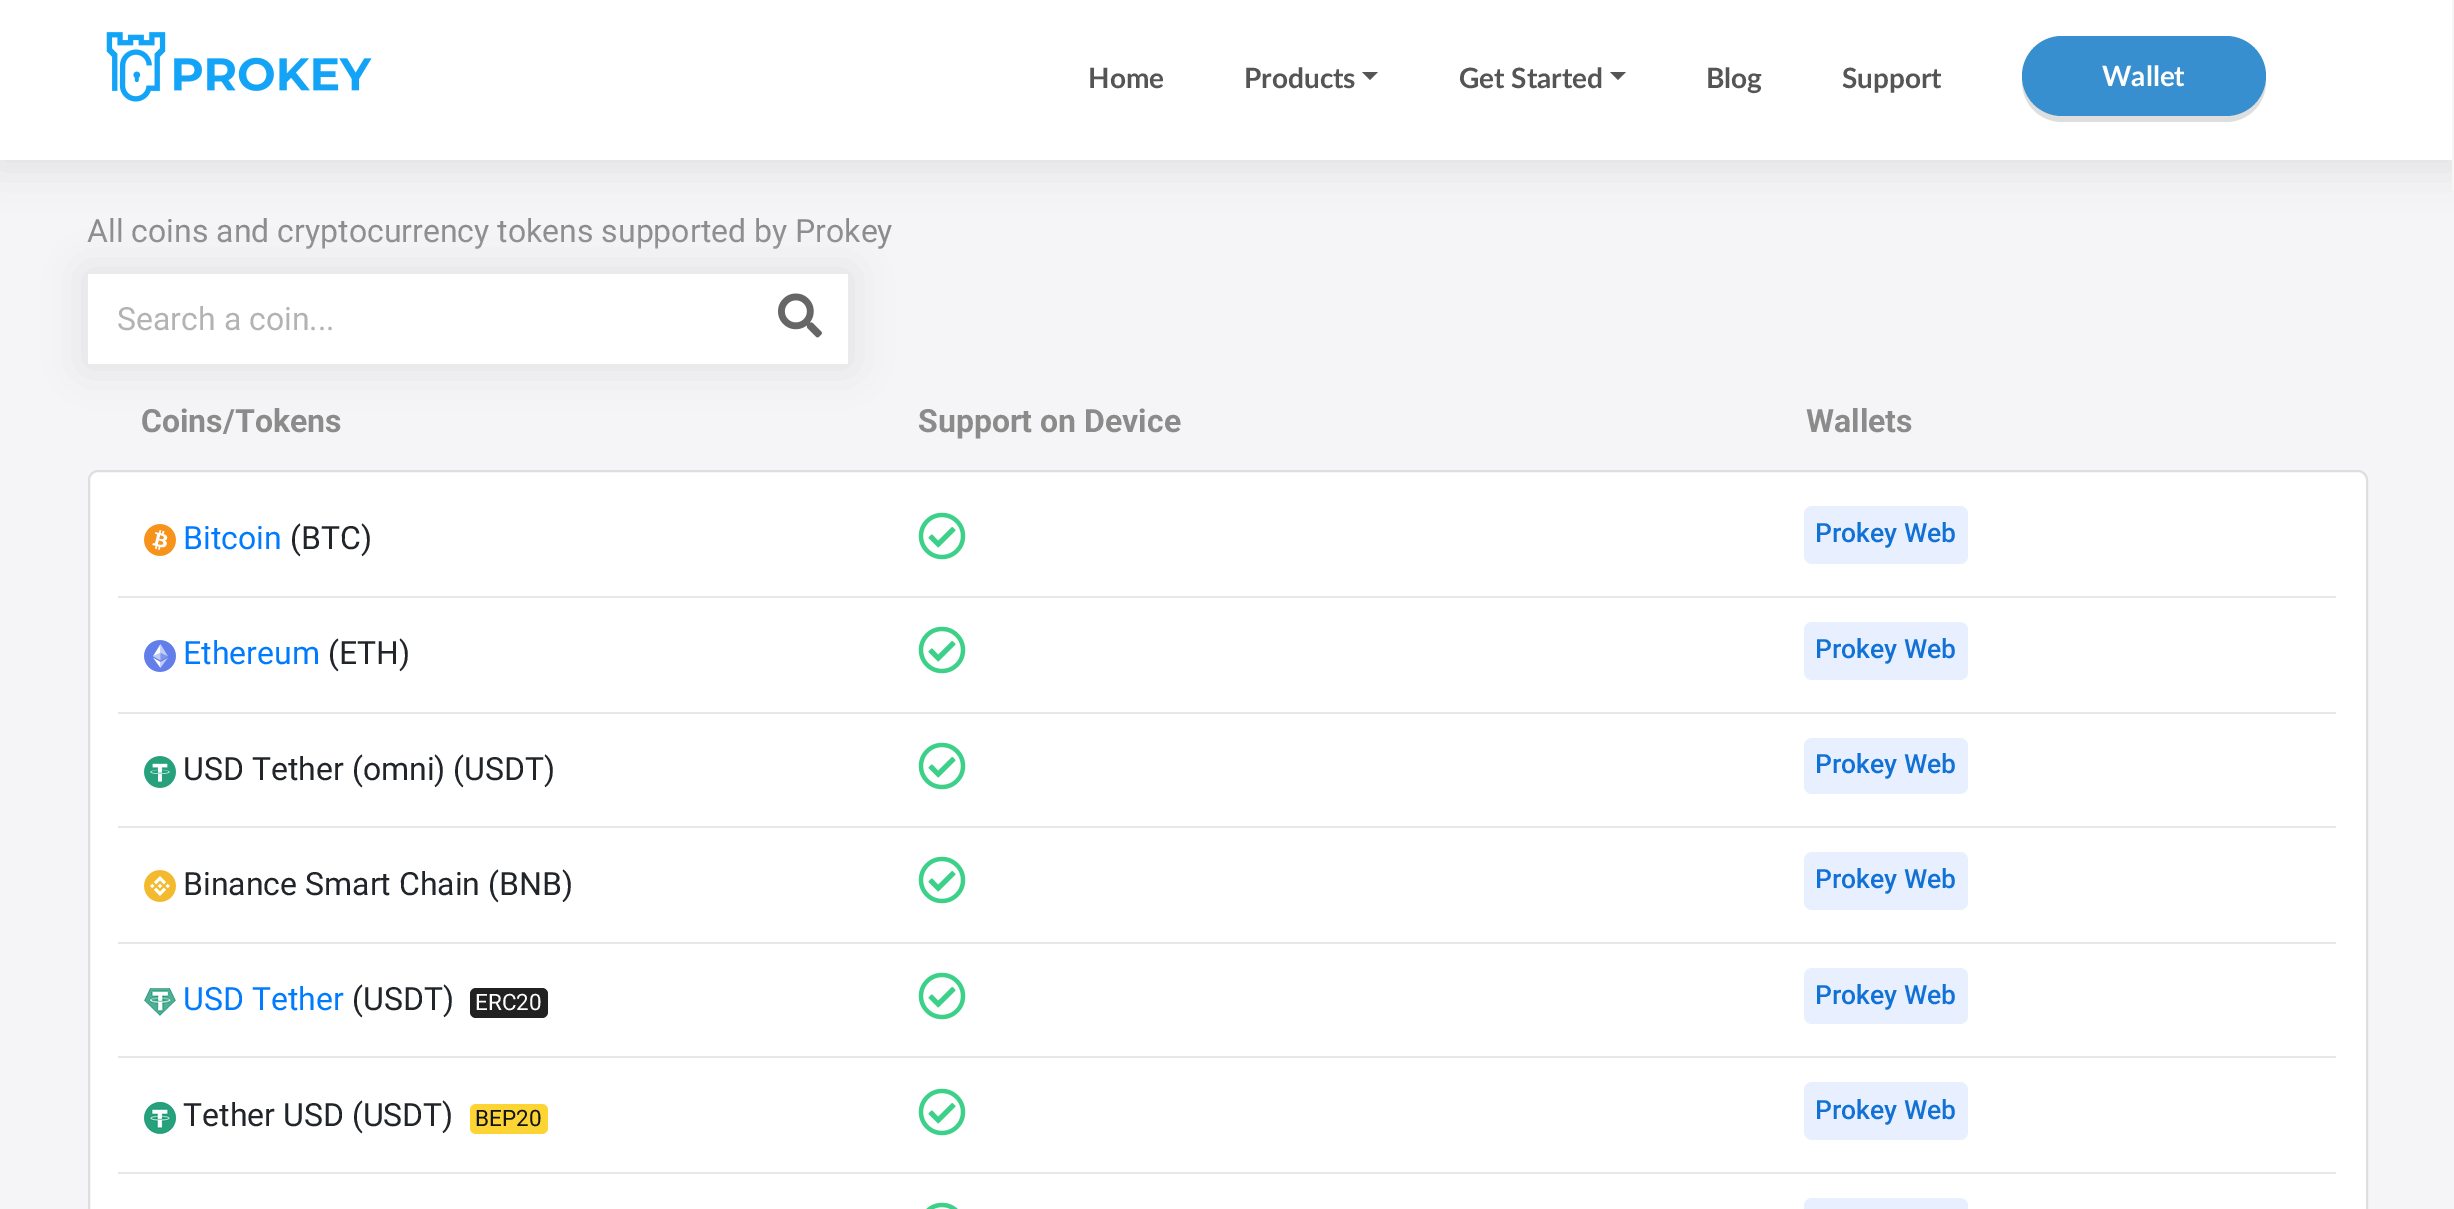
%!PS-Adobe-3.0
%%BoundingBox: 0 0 2454 1209
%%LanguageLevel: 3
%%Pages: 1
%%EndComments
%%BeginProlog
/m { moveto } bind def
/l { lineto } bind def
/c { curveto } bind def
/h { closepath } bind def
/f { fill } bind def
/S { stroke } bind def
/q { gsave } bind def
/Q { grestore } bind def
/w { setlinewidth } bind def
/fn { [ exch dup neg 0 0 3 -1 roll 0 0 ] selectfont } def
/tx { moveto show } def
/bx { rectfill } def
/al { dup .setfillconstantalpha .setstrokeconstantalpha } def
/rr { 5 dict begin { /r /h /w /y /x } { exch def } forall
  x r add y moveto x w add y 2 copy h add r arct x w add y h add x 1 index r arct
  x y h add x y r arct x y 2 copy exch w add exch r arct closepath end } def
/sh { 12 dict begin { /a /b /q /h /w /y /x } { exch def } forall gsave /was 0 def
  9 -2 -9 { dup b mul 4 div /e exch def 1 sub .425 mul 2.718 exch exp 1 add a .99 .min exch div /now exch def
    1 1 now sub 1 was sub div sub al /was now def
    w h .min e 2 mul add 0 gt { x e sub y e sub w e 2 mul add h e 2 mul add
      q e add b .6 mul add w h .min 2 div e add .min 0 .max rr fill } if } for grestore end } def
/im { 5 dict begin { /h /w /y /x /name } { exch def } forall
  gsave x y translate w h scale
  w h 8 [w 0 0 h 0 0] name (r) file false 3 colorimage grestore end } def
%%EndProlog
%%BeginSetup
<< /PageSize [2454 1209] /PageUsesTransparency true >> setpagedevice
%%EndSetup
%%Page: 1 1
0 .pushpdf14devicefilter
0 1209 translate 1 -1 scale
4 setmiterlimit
0.961 0.961 0.969 setrgbcolor
0 0 2454 1209 bx
0.875 0.875 0.886 setrgbcolor
-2 4 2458 164 0 20 1 sh
1 setgray
0 0 2452 160 bx
(image0.raw) 106 32 266 70 im
/Lato-Bold 28 fn
0.333 setgray
(Home) 1088 88 tx
(Products) 1244 88 tx
1362 72 m 1378 72 l 1370 80 l h f
(Get Started) 1459 88 tx
1610 72 m 1626 72 l 1618 80 l h f
(Blog) 1706 88 tx
(Support) 1842 88 tx
0.871 setgray
2022 79 m 2022 82 l 2022 104 2040 122 2062 122 c 2226 122 l 2248 122 2266 104 2266 82 c 2266 79 l 2264 100 2247 116 2226 116 c 2062 116 l 2041 116 2024 100 2022 79 c h f
0.22 0.561 0.812 setrgbcolor
2022 36 244 80 40 rr f
1 setgray
(Wallet) 2102 86 tx
0.965 setgray
2452 0 2 191 bx
/Roboto-Regular 32 fn
0.545 setgray
(All coins and cryptocurrency tokens supported by Prokey) 87 242 tx
0.875 0.875 0.886 setrgbcolor
86 272 764 94 0 20 1 sh
1 setgray
88 274 760 90 bx
0.702 setgray
(Search a coin...) 117 330 tx
(image1.raw) 778 293 44 45 im
/Roboto-Bold 32 fn
0.545 setgray
(Coins/Tokens) 141 432 tx
(Support on Device) 918 432 tx
(Wallets) 1806 432 tx
1 setgray
89 471 2278 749 9 rr q f Q
0.871 setgray
2 w
S
(image2.raw) 144 524 32 32 im
/Roboto-Regular 32 fn
0 0.482 1 setrgbcolor
(Bitcoin) 183 549 tx
0.129 0.145 0.161 setrgbcolor
(\(BTC\)) 290 549 tx
(image3.raw) 918 512 48 48 im
0.91 0.906 0.906 setrgbcolor
118 596 2218 2 bx
0.91 0.937 1 setrgbcolor
1804 506 164 58 8 rr f
/Roboto-Medium 26.5 fn
0.067 0.443 0.831 setrgbcolor
(Prokey Web) 1815 542 tx
(image4.raw) 144 640 32 32 im
/Roboto-Regular 32 fn
0 0.482 1 setrgbcolor
(Ethereum) 183 664 tx
0.129 0.145 0.161 setrgbcolor
(\(ETH\)) 328 664 tx
(image3.raw) 918 626 48 48 im
0.91 0.906 0.906 setrgbcolor
118 712 2218 2 bx
0.91 0.937 1 setrgbcolor
1804 622 164 58 8 rr f
/Roboto-Medium 26.5 fn
0.067 0.443 0.831 setrgbcolor
(Prokey Web) 1815 658 tx
(image5.raw) 144 756 32 32 im
/Roboto-Regular 32 fn
0.129 0.145 0.161 setrgbcolor
(USD Tether \(omni\) \(USDT\)) 183 780 tx
(image3.raw) 918 742 48 48 im
0.91 0.906 0.906 setrgbcolor
118 826 2218 2 bx
0.91 0.937 1 setrgbcolor
1804 738 164 56 8 rr f
/Roboto-Medium 26.5 fn
0.067 0.443 0.831 setrgbcolor
(Prokey Web) 1815 773 tx
(image6.raw) 144 870 32 32 im
/Roboto-Regular 32 fn
0.129 0.145 0.161 setrgbcolor
(Binance Smart Chain \(BNB\)) 183 895 tx
(image3.raw) 918 856 48 48 im
0.91 0.906 0.906 setrgbcolor
118 942 2218 2 bx
0.91 0.937 1 setrgbcolor
1804 852 164 58 8 rr f
/Roboto-Medium 26.5 fn
0.067 0.443 0.831 setrgbcolor
(Prokey Web) 1815 888 tx
(image7.raw) 144 988 32 28 im
/Roboto-Regular 32 fn
0 0.482 1 setrgbcolor
(USD Tether) 183 1010 tx
0.129 0.145 0.161 setrgbcolor
(\(USDT\)) 352 1010 tx
0.129 setgray
470 988 78 30 6 rr f
/Roboto-Regular 22.5 fn
1 setgray
(ERC20) 475 1010 tx
(image3.raw) 918 972 48 48 im
0.91 0.906 0.906 setrgbcolor
118 1056 2218 2 bx
0.91 0.937 1 setrgbcolor
1804 968 164 56 8 rr f
/Roboto-Medium 26.5 fn
0.067 0.443 0.831 setrgbcolor
(Prokey Web) 1815 1004 tx
(image8.raw) 144 1102 32 32 im
/Roboto-Regular 32 fn
0.129 0.145 0.161 setrgbcolor
(Tether USD \(USDT\)) 183 1126 tx
0.988 0.835 0.208 setrgbcolor
470 1104 78 30 6 rr f
/Roboto-Regular 22.5 fn
0.071 0.078 0.098 setrgbcolor
(BEP20) 475 1126 tx
(image3.raw) 918 1088 48 48 im
0.91 0.906 0.906 setrgbcolor
118 1172 2218 2 bx
0.91 0.937 1 setrgbcolor
1804 1082 164 58 8 rr f
/Roboto-Medium 26.5 fn
0.067 0.443 0.831 setrgbcolor
(Prokey Web) 1815 1119 tx
(image9.raw) 926 1202 32 7 im
0.91 0.937 1 setrgbcolor
1804 1198 164 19 8 rr f
.poppdf14devicefilter showpage
%%EOF
